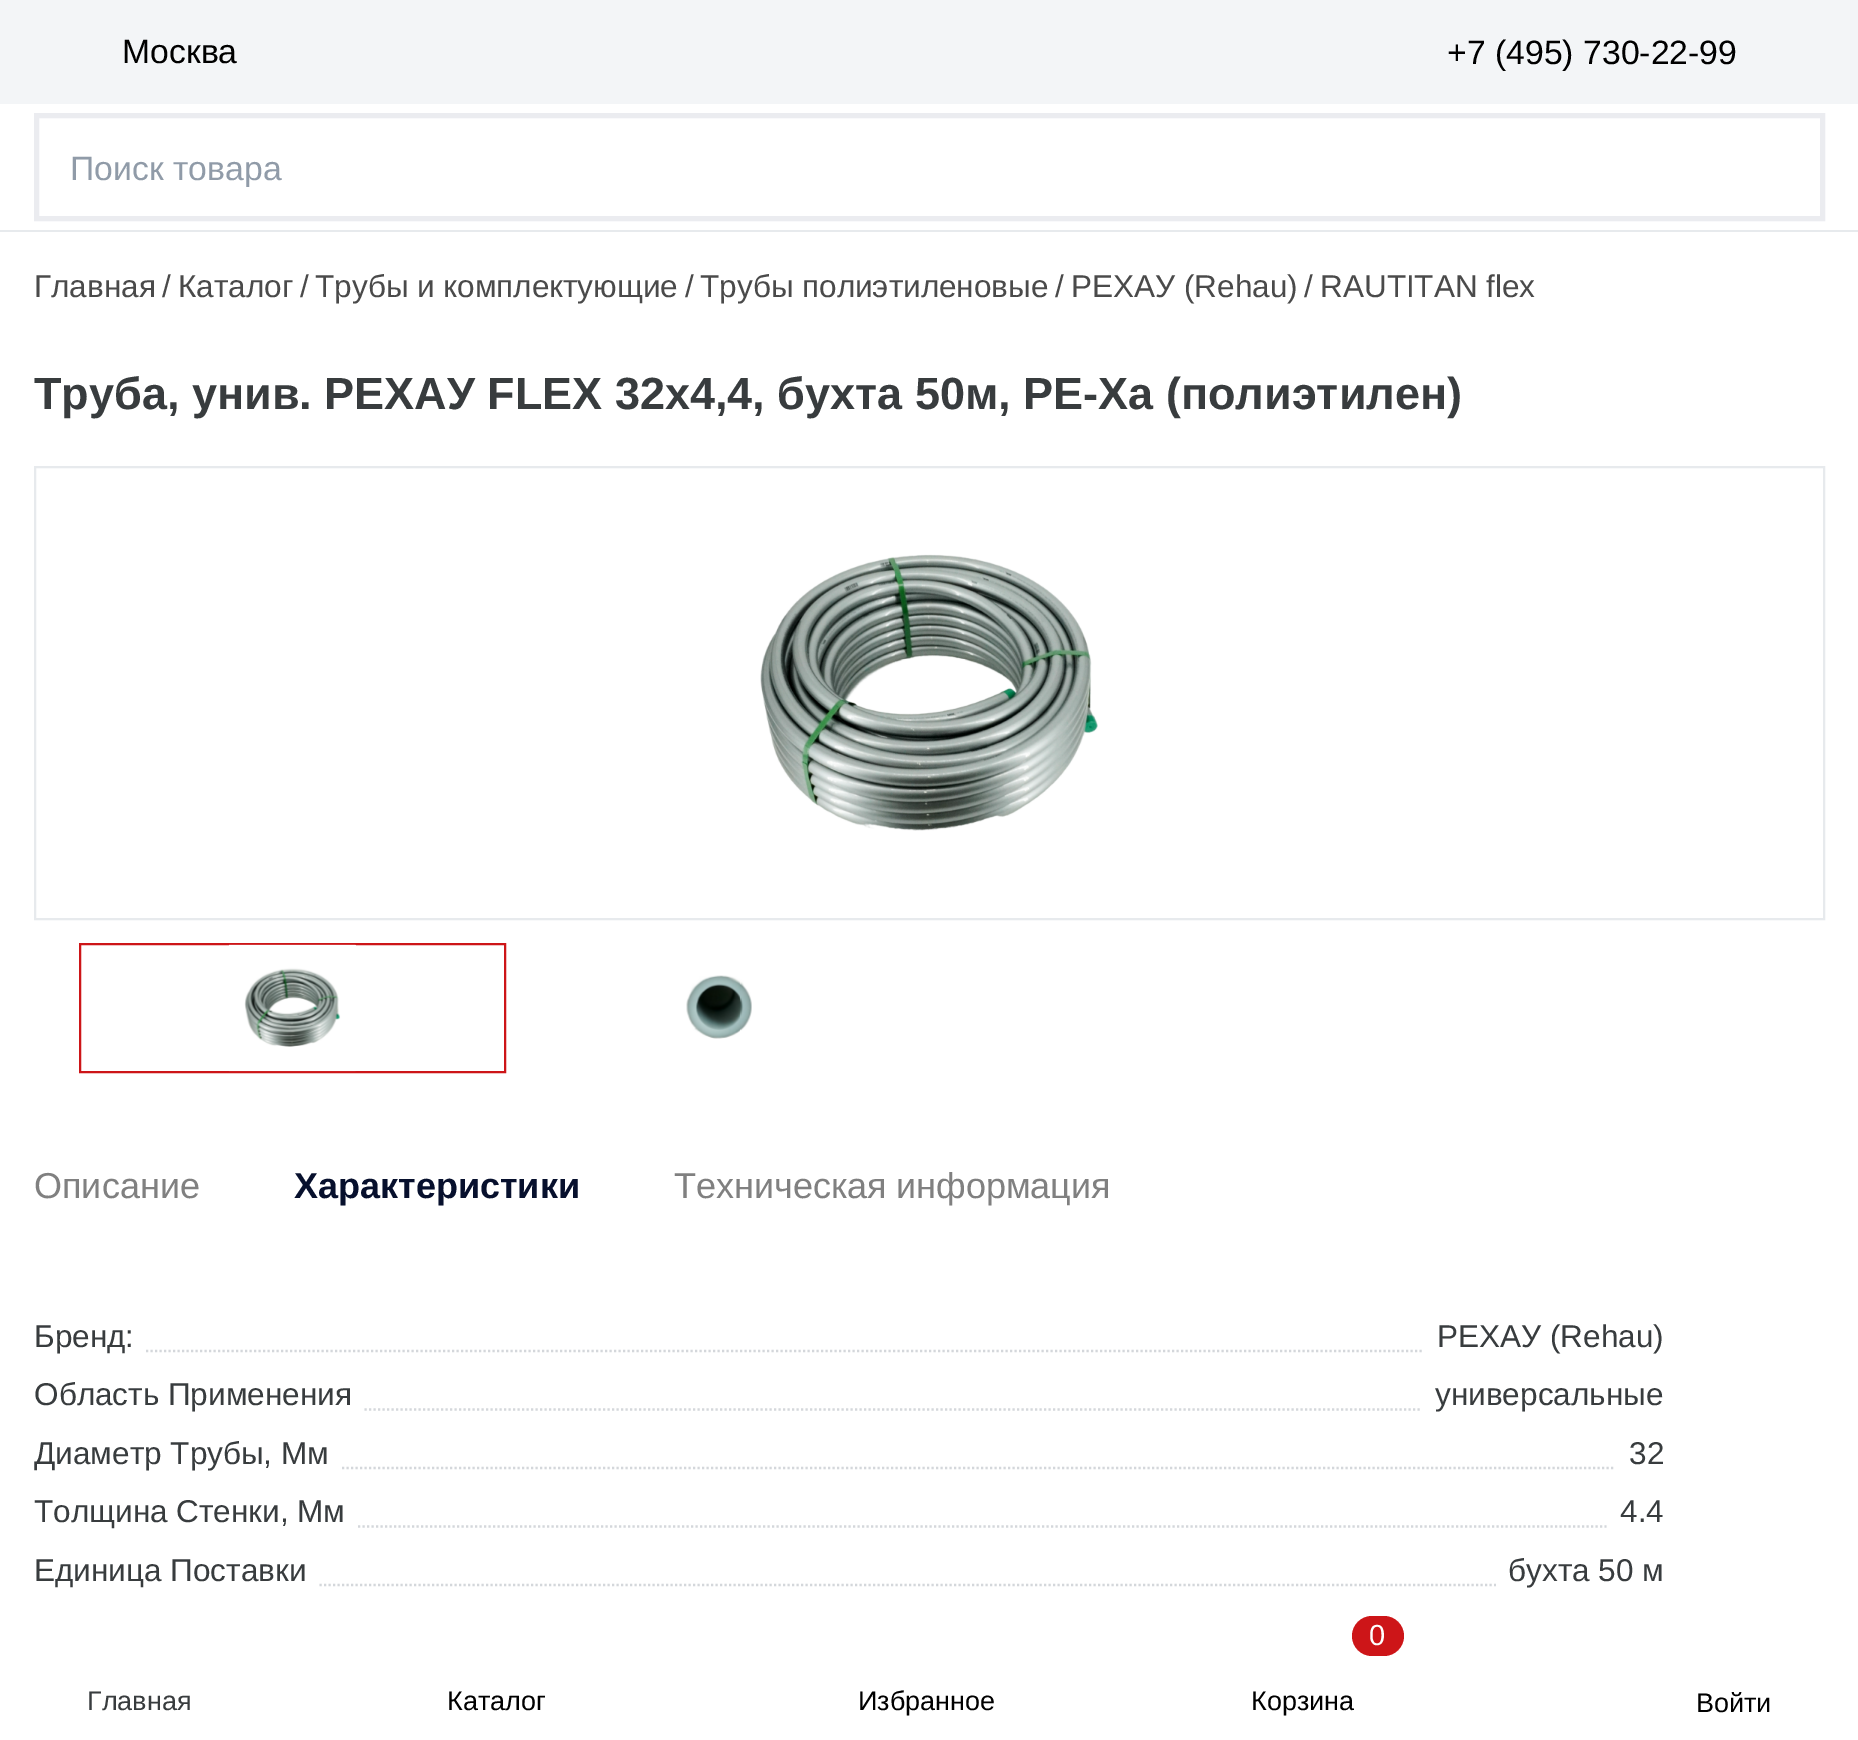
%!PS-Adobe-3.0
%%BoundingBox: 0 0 1858 1740
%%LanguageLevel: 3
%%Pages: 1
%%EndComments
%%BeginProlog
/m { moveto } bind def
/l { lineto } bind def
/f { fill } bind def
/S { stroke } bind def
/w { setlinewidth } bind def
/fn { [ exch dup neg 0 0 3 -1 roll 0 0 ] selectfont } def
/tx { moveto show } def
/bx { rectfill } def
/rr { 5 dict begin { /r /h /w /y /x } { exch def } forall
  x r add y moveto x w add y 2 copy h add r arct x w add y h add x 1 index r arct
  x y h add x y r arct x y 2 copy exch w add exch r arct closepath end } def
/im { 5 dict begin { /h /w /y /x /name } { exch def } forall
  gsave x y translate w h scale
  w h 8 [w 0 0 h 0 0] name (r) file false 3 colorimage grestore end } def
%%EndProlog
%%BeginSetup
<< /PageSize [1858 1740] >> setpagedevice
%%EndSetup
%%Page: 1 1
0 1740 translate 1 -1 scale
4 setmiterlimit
1 setgray
0 0 1858 1740 bx
0.906 0.918 0.929 setrgbcolor
0 230 1858 2 bx
0.953 0.961 0.969 setrgbcolor
0 0 1858 104 bx
/LiberationSans-Regular 33.75 fn
0 setgray
(Москва) 122 63 tx
(+7 \(495\) 730-22-99) 1447 64 tx
0.922 0.925 0.941 setrgbcolor
5 w
36.5 115.5 1786 103 rectstroke
0.565 0.608 0.659 setrgbcolor
(Поиск товара) 70 180 tx
/LiberationSans-Regular 27 fn
0.22 0.235 0.243 setrgbcolor
(Главная) 87 1710 tx
0 setgray
(Каталог) 447 1710 tx
(Избранное) 858 1710 tx
0.804 0.082 0.094 setrgbcolor
1352 1616 52 40 20 rr f
/LiberationSans-Regular 29 fn
1 setgray
(0) 1369 1645 tx
/LiberationSans-Regular 27 fn
0 setgray
(Корзина) 1251 1710 tx
(Войти) 1696 1712 tx
/LiberationSans-Regular 31.5 fn
0.29 setgray
(Главная) 34 297 tx
(/) 162 297 tx
(Каталог) 178 297 tx
(/) 300 297 tx
(Трубы и комплектующие) 315 297 tx
(/) 685 297 tx
(Трубы полиэтиленовые) 700 297 tx
(/) 1055 297 tx
(РЕХАУ \(Rehau\)) 1071 297 tx
(/) 1304 297 tx
(RAUTITAN flex) 1320 297 tx
/LiberationSans-Bold 45 fn
0.22 0.235 0.243 setrgbcolor
(Труба, унив. РЕХАУ FLEX 32x4,4, бухта 50м, PE-Xa \(полиэтилен\)) 34 409 tx
0.906 0.918 0.929 setrgbcolor
2 w
35 467 1789 452 rectstroke
(image0.raw) 760 554 338 277 im
0.804 0.082 0.094 setrgbcolor
80 944 425 128 rectstroke
(image1.raw) 229 944 127 128 im
(image2.raw) 686 975 66 64 im
/LiberationSans-Regular 36 fn
0.502 setgray
(Описание) 34 1198 tx
/LiberationSans-Bold 36 fn
0.027 0.063 0.176 setrgbcolor
(Характеристики) 294 1198 tx
/LiberationSans-Regular 36 fn
0.502 setgray
(Техническая информация) 674 1198 tx
/LiberationSans-Regular 31.5 fn
0.22 0.235 0.243 setrgbcolor
(Бренд:) 34 1347 tx
0.831 0.843 0.859 setrgbcolor
2.2 w
[2.25 2.25] 0 setdash
146 1351 m 1424 1351 l S
0.22 0.235 0.243 setrgbcolor
(РЕХАУ \(Rehau\)) 1437 1347 tx
(Область Применения) 34 1405 tx
0.831 0.843 0.859 setrgbcolor
364.5 1409.5 m 1422 1409.5 l S
0.22 0.235 0.243 setrgbcolor
(универсальные) 1435 1405 tx
(Диаметр Трубы, Мм) 34 1464 tx
(32) 1629 1464 tx
0.831 0.843 0.859 setrgbcolor
342 1468 m 1615.5 1468 l S
0.22 0.235 0.243 setrgbcolor
(Толщина Стенки, Мм) 34 1522 tx
(4.4) 1620 1522 tx
0.831 0.843 0.859 setrgbcolor
358 1526.5 m 1606.5 1526.5 l S
0.22 0.235 0.243 setrgbcolor
(Единица Поставки) 34 1581 tx
0.831 0.843 0.859 setrgbcolor
319.5 1585 m 1496 1585 l S
0.22 0.235 0.243 setrgbcolor
(бухта 50 м) 1508 1581 tx
showpage
%%EOF
